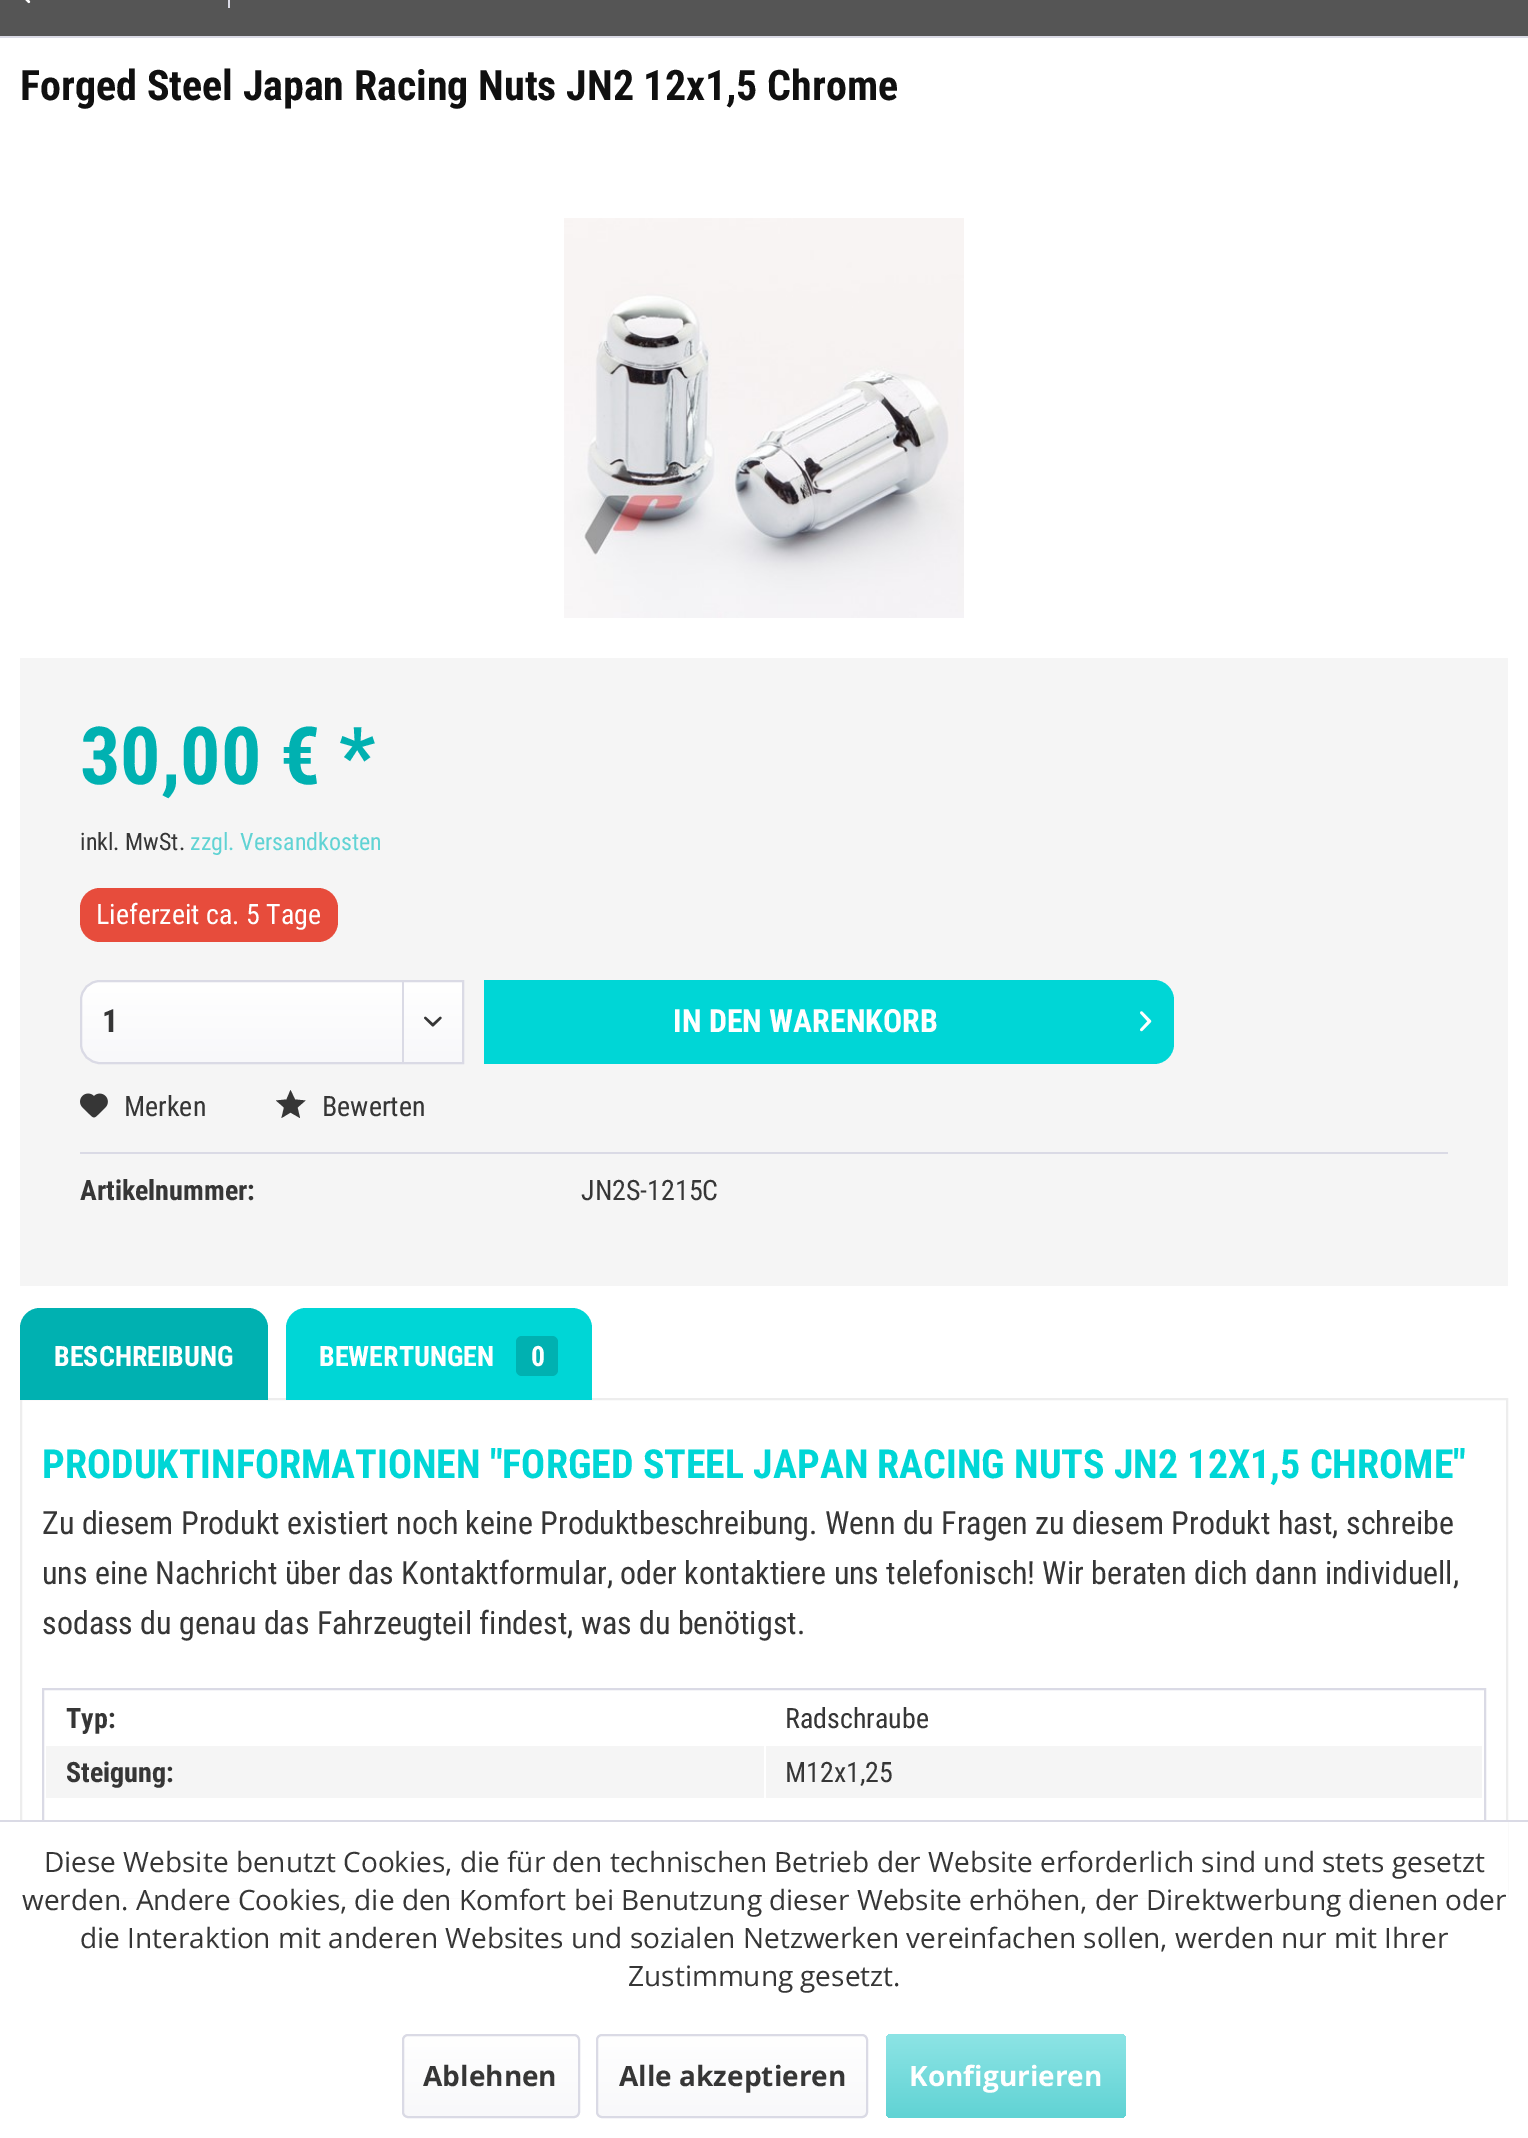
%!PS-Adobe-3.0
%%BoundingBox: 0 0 1528 2138
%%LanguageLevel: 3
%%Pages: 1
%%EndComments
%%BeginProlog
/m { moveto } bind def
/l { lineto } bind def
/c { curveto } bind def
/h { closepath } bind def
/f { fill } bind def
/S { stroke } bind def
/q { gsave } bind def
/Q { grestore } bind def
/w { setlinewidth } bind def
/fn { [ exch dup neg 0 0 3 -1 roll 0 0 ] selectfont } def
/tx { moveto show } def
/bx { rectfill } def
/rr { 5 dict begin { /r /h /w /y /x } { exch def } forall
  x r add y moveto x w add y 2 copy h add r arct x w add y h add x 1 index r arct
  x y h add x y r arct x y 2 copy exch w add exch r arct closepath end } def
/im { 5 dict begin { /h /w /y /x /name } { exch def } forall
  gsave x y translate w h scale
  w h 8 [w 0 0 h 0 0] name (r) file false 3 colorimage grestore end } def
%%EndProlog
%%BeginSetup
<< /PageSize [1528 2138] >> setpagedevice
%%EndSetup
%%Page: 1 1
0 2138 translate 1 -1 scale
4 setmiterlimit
1 setgray
0 0 1528 2138 bx
0.333 setgray
0 0 1528 36 bx
0.855 0.855 0.898 setrgbcolor
0 36 1528 2 bx
(image0.raw) 25 0 6 4 im
228 0 2 8 bx
/RobotoCondensed-Bold 42 fn
0.063 setgray
(Forged Steel Japan Racing Nuts JN2 12x1,5 Chrome) 20 100 tx
(image1.raw) 564 218 400 400 im
0.961 setgray
20 658 1488 628 bx
/RobotoCondensed-Bold 80 fn
0 0.694 0.694 setrgbcolor
(30,00 € *) 80 784 tx
/RobotoCondensed-Regular 24 fn
0.212 setgray
(inkl. MwSt.) 80 850 tx
0.376 0.827 0.831 setrgbcolor
(zzgl. Versandkosten) 190 850 tx
0.906 0.298 0.235 setrgbcolor
80 888 258 54 20 rr f
/RobotoCondensed-Regular 28 fn
1 setgray
(Lieferzeit ca. 5 Tage) 96 924 tx
q 100 982 m 462 982 l 462 1062 l 100 1062 l 90 1062 82 1054 82 1044 c 82 1000 l 82 990 90 982 100 982 c h clip newpath
<< /ShadingType 2 /ColorSpace /DeviceRGB /Coords [272 982 272 1062] /Extend [true true] /Function << /FunctionType 2 /Domain [0 1] /C0 [1 1 1] /C1 [0.973 0.973 0.98] /N 1 >> >> shfill Q
0.855 0.855 0.898 setrgbcolor
2 w
100 981 m 463 981 l 463 1063 l 100 1063 l 89.5 1063 81 1054.5 81 1044 c 81 1000 l 81 989.5 89.5 981 100 981 c h S
/RobotoCondensed-Bold 32 fn
0.212 setgray
(1) 102 1032 tx
0.855 0.855 0.898 setrgbcolor
402 982 2 80 bx
(image2.raw) 424 1016 18 11 im
0 0.839 0.839 setrgbcolor
484 980 m 1154 980 l 1165 980 1174 989 1174 1000 c 1174 1044 l 1174 1055 1165 1064 1154 1064 c 484 1064 l h f
1 setgray
(IN DEN WARENKORB) 673 1032 tx
(image3.raw) 1140 1011 12 21 im
0.855 0.855 0.898 setrgbcolor
80 1152 1368 2 bx
(image4.raw) 80 1093 28 25 im
/RobotoCondensed-Regular 28 fn
0.212 setgray
(Merken) 124 1116 tx
(Bewerten) 322 1116 tx
290.5 1090 m 286.5 1099.5 l 276 1100.5 l 284 1107.5 l 281.5 1118 l 290.5 1112.5 l 300 1118 l 297.5 1107.5 l 305.5 1100.5 l 295 1099.5 l h f
/RobotoCondensed-Bold 28 fn
(Artikelnummer:) 80 1200 tx
/RobotoCondensed-Regular 28 fn
(JN2S-1215C) 581 1200 tx
0.929 setgray
21 1399 1486 498 rectstroke
0 0.694 0.694 setrgbcolor
40 1308 m 248 1308 l 259 1308 268 1317 268 1328 c 268 1400 l 20 1400 l 20 1328 l 20 1317 29 1308 40 1308 c h f
/RobotoCondensed-Bold 28 fn
1 setgray
(BESCHREIBUNG) 54 1366 tx
0 0.839 0.839 setrgbcolor
306 1308 m 572 1308 l 583 1308 592 1317 592 1328 c 592 1400 l 286 1400 l 286 1328 l 286 1317 295 1308 306 1308 c h f
1 setgray
(BEWERTUNGEN) 319 1366 tx
0 0.694 0.694 setrgbcolor
516 1336 42 40 6 rr f
1 setgray
(0) 531 1366 tx
/RobotoCondensed-Bold 40 fn
0 0.839 0.839 setrgbcolor
(PRODUKTINFORMATIONEN "FORGED STEEL JAPAN RACING NUTS JN2 12X1,5 CHROME") 42 1478 tx
/RobotoCondensed-Regular 32 fn
0.212 setgray
(Zu diesem Produkt existiert noch keine Produktbeschreibung. Wenn du Fragen zu diesem Produkt hast, schreibe) 42 1534 tx
(uns eine Nachricht über das Kontaktformular, oder kontaktiere uns telefonisch! Wir beraten dich dann individuell,) 42 1584 tx
(sodass du genau das Fahrzeugteil findest, was du benötigst.) 42 1634 tx
0.855 0.855 0.898 setrgbcolor
43 1689 1442 166 rectstroke
/RobotoCondensed-Bold 28 fn
0.212 setgray
(Typ:) 66 1728 tx
/RobotoCondensed-Regular 28 fn
(Radschraube) 785 1728 tx
0.961 setgray
46 1746 718 52 bx
/RobotoCondensed-Bold 28 fn
0.212 setgray
(Steigung:) 66 1782 tx
0.961 setgray
766 1746 716 52 bx
/RobotoCondensed-Regular 28 fn
0.212 setgray
(M12x1,25) 785 1782 tx
1 setgray
20 1822 1488 76 bx
0.855 0.855 0.898 setrgbcolor
0 1820 1528 2 bx
/OpenSans-Regular 28 fn
0.212 setgray
(Diese Website benutzt Cookies, die für den technischen Betrieb der Website erforderlich sind und stets gesetzt) 44 1872 tx
(werden. Andere Cookies, die den Komfort bei Benutzung dieser Website erhöhen, der Direktwerbung dienen oder) 22 1910 tx
(die Interaktion mit anderen Websites und sozialen Netzwerken vereinfachen sollen, werden nur mit Ihrer) 80 1948 tx
(Zustimmung gesetzt.) 628 1986 tx
q 404 2036 174 80 4 rr clip newpath
<< /ShadingType 2 /ColorSpace /DeviceRGB /Coords [491 2036 491 2116] /Extend [true true] /Function << /FunctionType 2 /Domain [0 1] /C0 [1 1 1] /C1 [0.973 0.973 0.98] /N 1 >> >> shfill Q
0.855 0.855 0.898 setrgbcolor
403 2035 176 82 5 rr S
/OpenSans-Bold 28 fn
0.212 setgray
(Ablehnen) 423 2086 tx
q 598 2036 268 80 4 rr clip newpath
<< /ShadingType 2 /ColorSpace /DeviceRGB /Coords [732 2036 732 2116] /Extend [true true] /Function << /FunctionType 2 /Domain [0 1] /C0 [1 1 1] /C1 [0.973 0.973 0.98] /N 1 >> >> shfill Q
0.855 0.855 0.898 setrgbcolor
597 2035 270 82 5 rr S
0.212 setgray
(Alle akzeptieren) 619 2086 tx
q 886 2034 240 84 6 rr clip newpath
<< /ShadingType 2 /ColorSpace /DeviceRGB /Coords [1006 2034 1006 2118] /Extend [true true] /Function << /FunctionType 2 /Domain [0 1] /C0 [0.553 0.894 0.898] /C1 [0.376 0.827 0.831] /N 1 >> >> shfill Q
1 setgray
(Konfigurieren) 909 2086 tx
showpage
%%EOF
